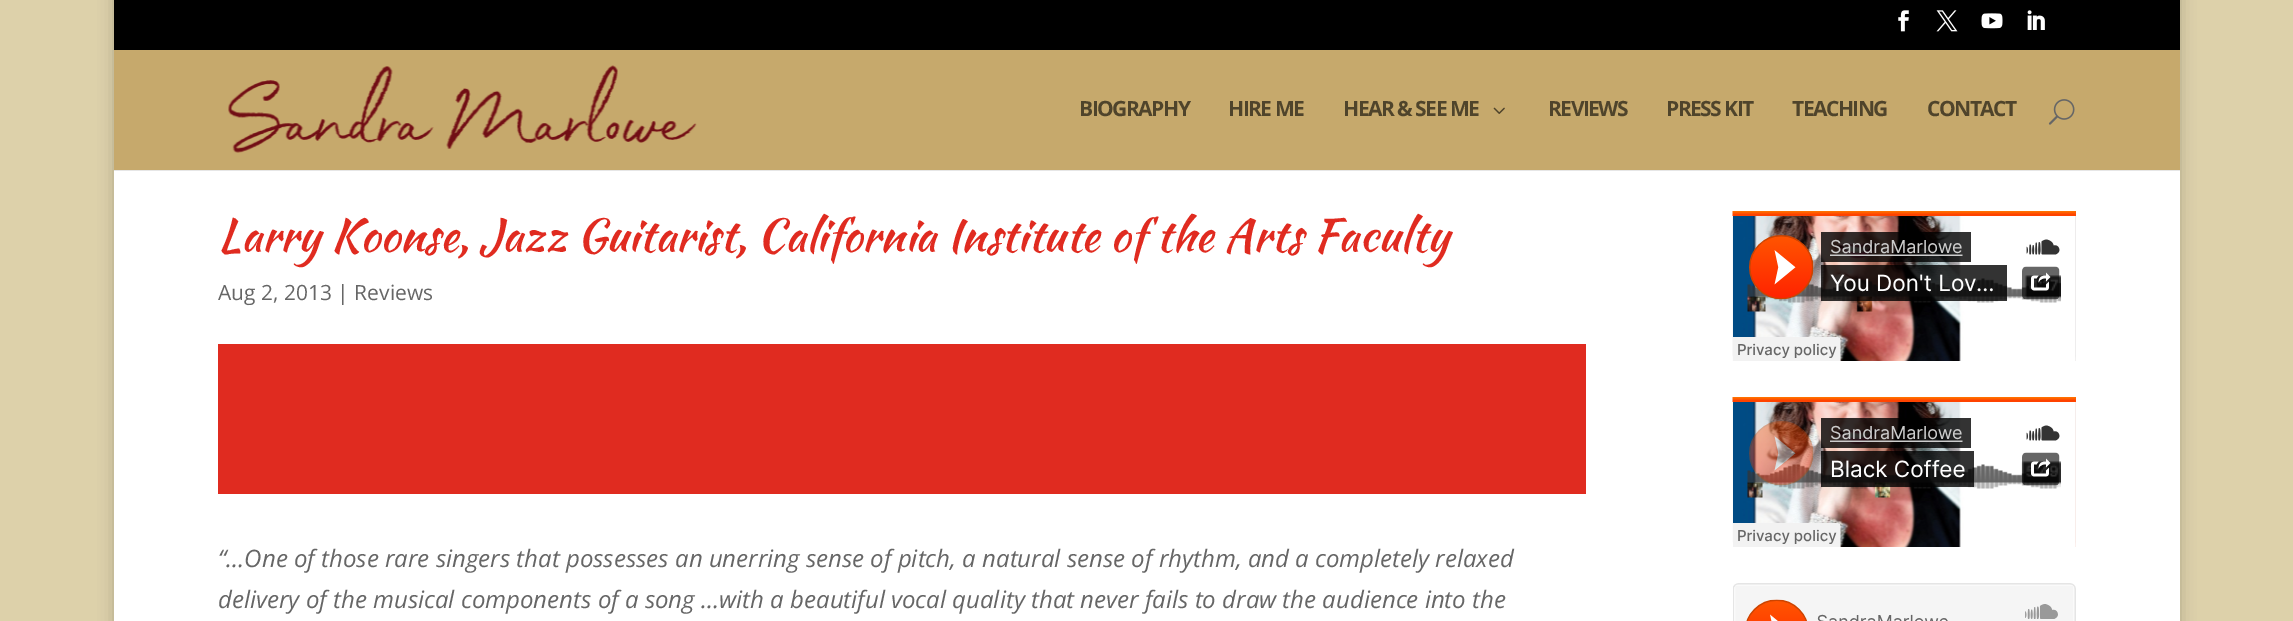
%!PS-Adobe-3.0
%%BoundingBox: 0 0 2293 621
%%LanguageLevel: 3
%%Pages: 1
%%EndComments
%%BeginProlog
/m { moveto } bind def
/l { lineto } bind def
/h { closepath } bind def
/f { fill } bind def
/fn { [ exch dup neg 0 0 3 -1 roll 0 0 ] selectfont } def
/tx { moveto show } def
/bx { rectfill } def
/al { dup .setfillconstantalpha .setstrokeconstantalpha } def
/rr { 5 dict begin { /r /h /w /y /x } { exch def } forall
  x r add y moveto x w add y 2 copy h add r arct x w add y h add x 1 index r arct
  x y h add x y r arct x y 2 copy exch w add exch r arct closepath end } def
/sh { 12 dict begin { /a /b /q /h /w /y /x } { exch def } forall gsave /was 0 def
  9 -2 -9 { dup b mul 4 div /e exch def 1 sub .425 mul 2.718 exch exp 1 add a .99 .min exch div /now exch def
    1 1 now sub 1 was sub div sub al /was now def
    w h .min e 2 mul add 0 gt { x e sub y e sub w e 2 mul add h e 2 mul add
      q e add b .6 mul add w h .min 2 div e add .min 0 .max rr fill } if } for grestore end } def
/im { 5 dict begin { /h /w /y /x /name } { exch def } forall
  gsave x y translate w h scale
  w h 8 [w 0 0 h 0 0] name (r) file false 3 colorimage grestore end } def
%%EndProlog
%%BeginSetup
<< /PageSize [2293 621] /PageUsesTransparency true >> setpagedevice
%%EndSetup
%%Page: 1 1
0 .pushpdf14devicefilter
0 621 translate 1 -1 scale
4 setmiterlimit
0.867 0.82 0.667 setrgbcolor
0 0 2293 621 bx
0 setgray
114 -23 2066 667 0 7.5 0.2 sh
114 0 2066 50 bx
(image0.raw) 1898 10 11 22 im
(image1.raw) 1936 10 22 22 im
(image2.raw) 1981 13 22 16 im
(image3.raw) 2027 10 18 20 im
0.902 setgray
114 170 m 114 171 l 2180 171 l 2180 51 l 2180 170 l h f
0.776 0.663 0.424 setrgbcolor
114 50 2066 120 bx
(image4.raw) 228 65 469 88 im
/OpenSans-Bold 21 fn
0.31 0.267 0.169 setrgbcolor
1079 116 m -1.5 0 (BIOGRAPHY) ashow
1228 116 m -1.5 0 (HIRE ME) ashow
1343 116 m -1.5 0 (HEAR & SEE ME) ashow
(image5.raw) 1493 107 12 7 im
1548 116 m -1.5 0 (REVIEWS) ashow
1666 116 m -1.5 0 (PRESS KIT) ashow
1792 116 m -1.5 0 (TEACHING) ashow
1927 116 m -1.5 0 (CONTACT) ashow
(image6.raw) 2048 99 27 26 im
1 setgray
114 171 2066 450 bx
/KaushanScript-Regular 45 fn
0.878 0.169 0.125 setrgbcolor
(Larry Koonse, Jazz Guitarist, California Institute of the Arts Faculty) 218 251 tx
/OpenSans-Regular 21 fn
0.4 setgray
(Aug 2, 2013 | Reviews) 218 300 tx
0.878 0.169 0.125 setrgbcolor
218 344 1368 150 bx
/OpenSans-Italic 24 fn
0.4 setgray
(“…One of those rare singers that possesses an unerring sense of pitch, a natural sense of rhythm, and a completely relaxed) 218 567 tx
(delivery of the musical components of a song …with a beautiful vocal quality that never fails to draw the audience into the) 218 608 tx
(image7.raw) 1732 211 344 150 im
(image8.raw) 1732 397 344 150 im
(image9.raw) 1733 583 343 38 im
.poppdf14devicefilter showpage
%%EOF
